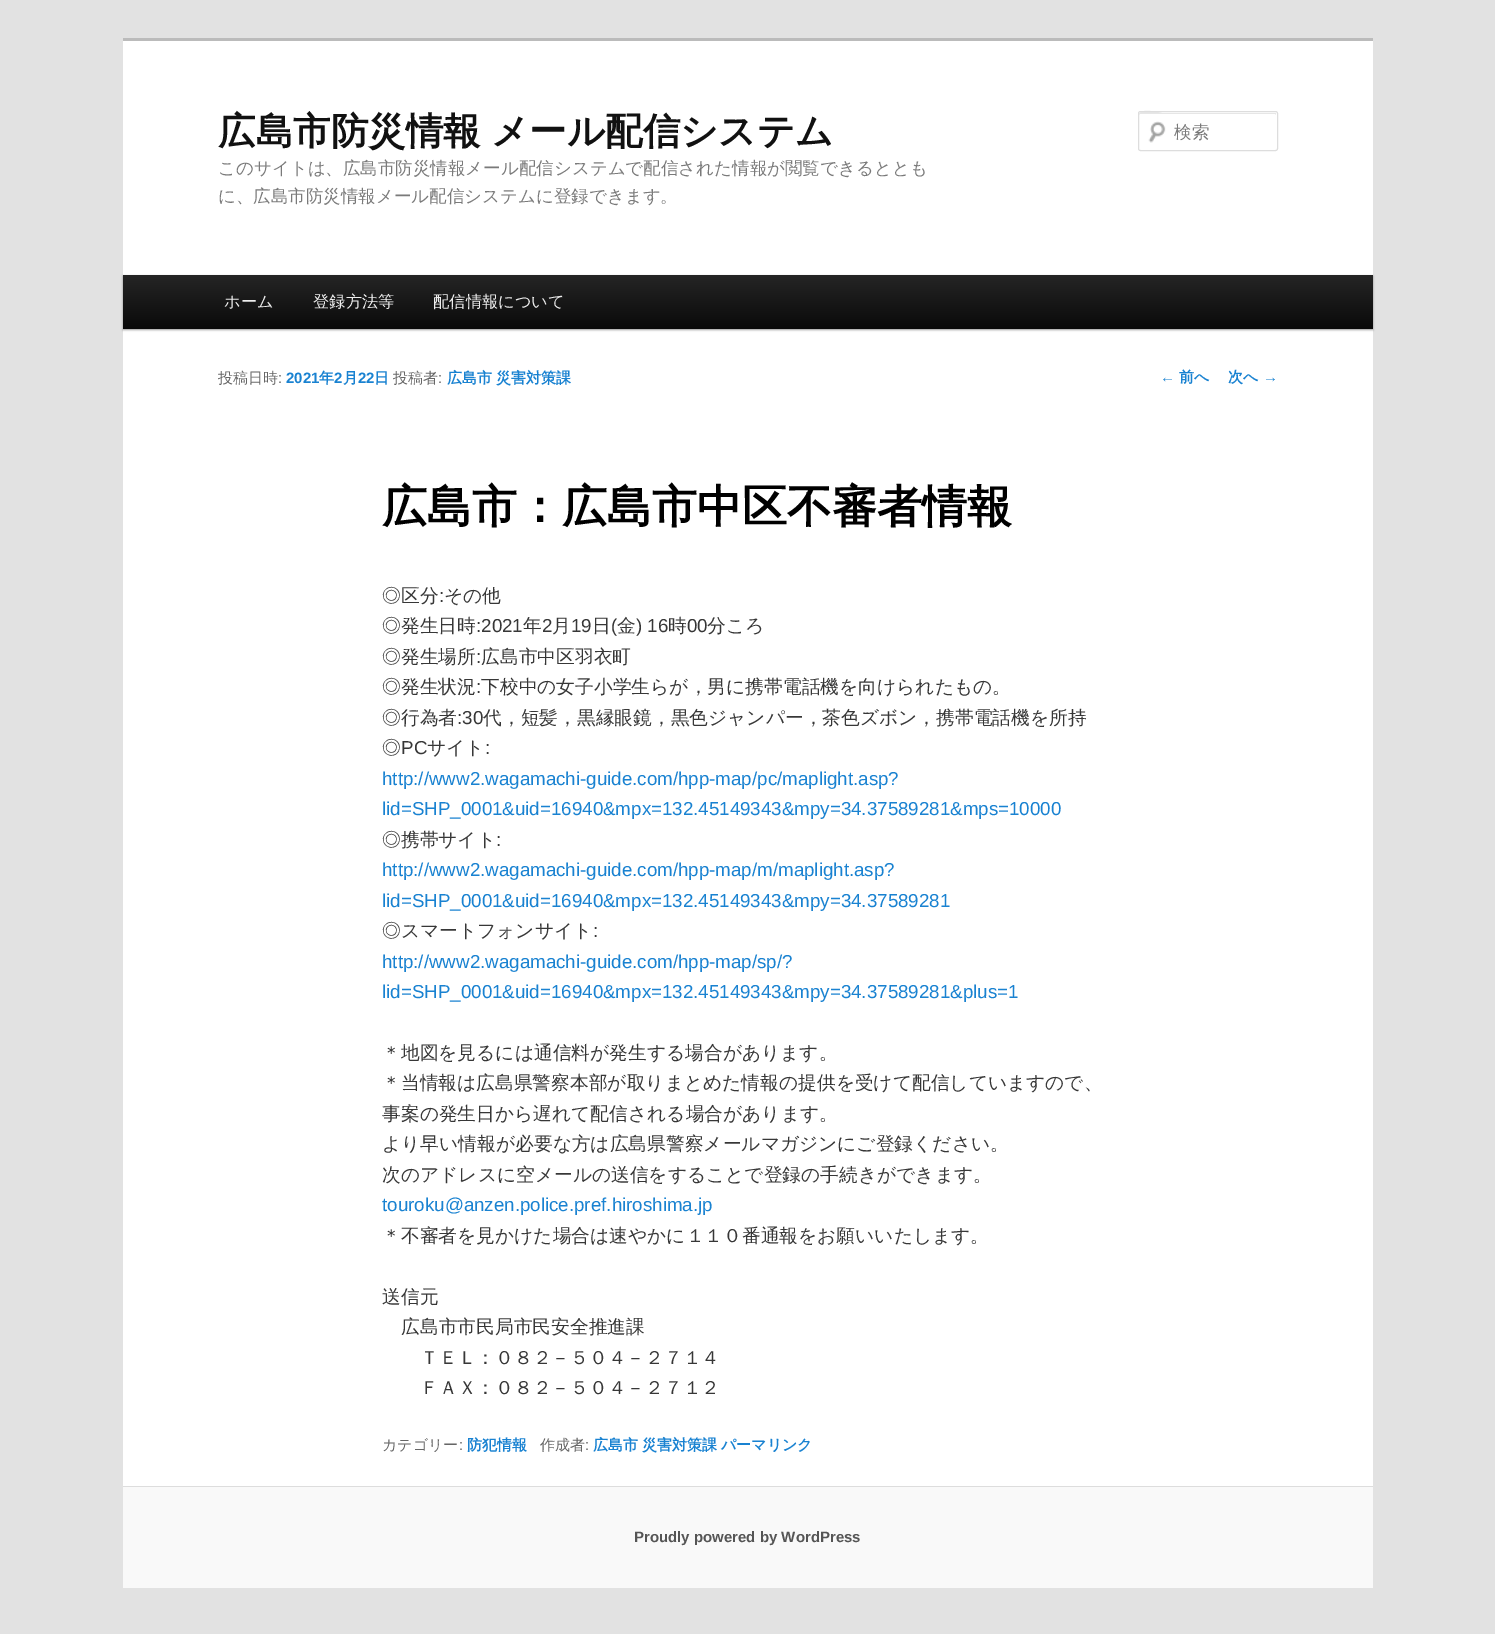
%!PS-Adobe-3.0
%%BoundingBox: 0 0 1495 1634
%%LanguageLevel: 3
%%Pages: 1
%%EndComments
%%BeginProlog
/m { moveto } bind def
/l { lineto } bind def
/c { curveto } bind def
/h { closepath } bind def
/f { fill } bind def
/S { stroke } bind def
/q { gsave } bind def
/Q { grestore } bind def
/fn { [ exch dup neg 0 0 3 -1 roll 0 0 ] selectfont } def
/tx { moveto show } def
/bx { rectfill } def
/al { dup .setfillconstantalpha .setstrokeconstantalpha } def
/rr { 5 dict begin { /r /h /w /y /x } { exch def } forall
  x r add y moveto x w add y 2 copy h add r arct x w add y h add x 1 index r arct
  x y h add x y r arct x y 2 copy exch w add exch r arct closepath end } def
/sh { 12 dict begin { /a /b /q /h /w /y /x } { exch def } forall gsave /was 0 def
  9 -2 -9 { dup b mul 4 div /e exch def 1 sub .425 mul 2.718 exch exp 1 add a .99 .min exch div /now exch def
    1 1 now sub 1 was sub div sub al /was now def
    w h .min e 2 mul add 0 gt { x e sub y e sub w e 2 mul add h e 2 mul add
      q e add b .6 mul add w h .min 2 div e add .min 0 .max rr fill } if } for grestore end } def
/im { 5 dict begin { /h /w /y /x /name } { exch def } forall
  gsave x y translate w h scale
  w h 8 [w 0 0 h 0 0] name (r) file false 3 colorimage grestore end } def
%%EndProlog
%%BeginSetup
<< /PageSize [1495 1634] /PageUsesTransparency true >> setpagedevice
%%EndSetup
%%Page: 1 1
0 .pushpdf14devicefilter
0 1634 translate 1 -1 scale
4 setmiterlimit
0.886 setgray
0 0 1495 1634 bx
1 setgray
123 41 1250 1445 bx
0.733 setgray
123 38 1250 3 bx
/WenQuanYiZenHei-Bold 37.5 fn
0.067 setgray
218 144 m -1 0 32 (広島市防災情報 メール配信システム) widthshow
/WenQuanYiZenHei-Medium 17.5 fn
0.478 setgray
(このサイトは、広島市防災情報メール配信システムで配信された情報が閲覧できるととも) 218 174 tx
(に、広島市防災情報メール配信システムに登録できます。) 218 202 tx
(image0.raw) 1148 121 18 22 im
0.902 setgray
1140 114 m 1275 114 l 1276 114 1276 114 1276 115 c 1276 113 l 1162 113 l 1162 113 1139 107 1139 115 c 1139 114 1139 114 1140 114 c h f
0.867 setgray
1138.5 111.5 139 39 2 rr S
0.478 setgray
(検索) 1174 138 tx
0 setgray
123 276 1250 54 0 1 0.4 sh
q 123 275 m 1373 275 l 1373 329 l 123 329 l h clip newpath
<< /ShadingType 2 /ColorSpace /DeviceRGB /Coords [748 275 748 329] /Extend [true true] /Function << /FunctionType 2 /Domain [0 1] /C0 [0.145 0.145 0.145] /C1 [0.039 0.039 0.039] /N 1 >> >> shfill Q
/WenQuanYiZenHei-Medium 16.25 fn
0.933 setgray
(ホーム) 224 307 tx
(登録方法等) 313 307 tx
(配信情報について) 433 307 tx
/WenQuanYiZenHei-Medium 15 fn
0.4 setgray
(投稿日時) 218 383 tx
/LiberationSans-Regular 15 fn
(:) 278 383 tx
/LiberationSans-Bold 15 fn
0.098 0.51 0.82 setrgbcolor
(2021) 286 383 tx
/WenQuanYiZenHei-Bold 15 fn
(年) 319 383 tx
/LiberationSans-Bold 15 fn
(2) 334 383 tx
/WenQuanYiZenHei-Bold 15 fn
(月) 343 383 tx
/LiberationSans-Bold 15 fn
(22) 358 383 tx
/WenQuanYiZenHei-Bold 15 fn
(日) 374 383 tx
/WenQuanYiZenHei-Medium 15 fn
0.4 setgray
(投稿者) 393 383 tx
/LiberationSans-Regular 15 fn
(:) 438 383 tx
/WenQuanYiZenHei-Bold 15 fn
0.098 0.51 0.82 setrgbcolor
(広島市 災害対策課) 447 383 tx
/WenQuanYiZenHei-Bold 45 fn
0 setgray
(広島市：広島市中区不審者情報) 382 522 tx
/WenQuanYiZenHei-Medium 18.75 fn
0.216 setgray
(◎区分) 382 602 tx
/LiberationSans-Regular 18.75 fn
(:) 439 602 tx
/WenQuanYiZenHei-Medium 18.75 fn
(その他) 444 602 tx
(◎発生日時) 382 632 tx
/LiberationSans-Regular 18.75 fn
(:2021) 476 632 tx
/WenQuanYiZenHei-Medium 18.75 fn
(年) 523 632 tx
/LiberationSans-Regular 18.75 fn
(2) 542 632 tx
/WenQuanYiZenHei-Medium 18.75 fn
(月) 552 632 tx
/LiberationSans-Regular 18.75 fn
(19) 571 632 tx
/WenQuanYiZenHei-Medium 18.75 fn
(日) 592 632 tx
/LiberationSans-Regular 18.75 fn
(\() 611 632 tx
/WenQuanYiZenHei-Medium 18.75 fn
(金) 617 632 tx
/LiberationSans-Regular 18.75 fn
(\) 16) 636 632 tx
/WenQuanYiZenHei-Medium 18.75 fn
(時) 668 632 tx
/LiberationSans-Regular 18.75 fn
(00) 687 632 tx
/WenQuanYiZenHei-Medium 18.75 fn
(分ころ) 707 632 tx
(◎発生場所) 382 663 tx
/LiberationSans-Regular 18.75 fn
(:) 476 663 tx
/WenQuanYiZenHei-Medium 18.75 fn
(広島市中区羽衣町) 481 663 tx
(◎発生状況) 382 693 tx
/LiberationSans-Regular 18.75 fn
(:) 476 693 tx
/WenQuanYiZenHei-Medium 18.75 fn
(下校中の女子小学生らが，男に携帯電話機を向けられたもの。) 481 693 tx
(◎行為者) 382 724 tx
/LiberationSans-Regular 18.75 fn
(:30) 457 724 tx
/WenQuanYiZenHei-Medium 18.75 fn
(代，短髪，黒縁眼鏡，黒色ジャンパー，茶色ズボン，携帯電話機を所持) 483 724 tx
(◎) 382 754 tx
/LiberationSans-Regular 18.75 fn
(PC) 401 754 tx
/WenQuanYiZenHei-Medium 18.75 fn
(サイト) 427 754 tx
/LiberationSans-Regular 18.75 fn
(:) 485 754 tx
0.098 0.51 0.82 setrgbcolor
(http://www2.wagamachi-guide.com/hpp-map/pc/maplight.asp?) 382 785 tx
(lid=SHP_0001&uid=16940&mpx=132.45149343&mpy=34.37589281&mps=10000) 382 815 tx
/WenQuanYiZenHei-Medium 18.75 fn
0.216 setgray
(◎携帯サイト) 382 846 tx
/LiberationSans-Regular 18.75 fn
(:) 496 846 tx
0.098 0.51 0.82 setrgbcolor
(http://www2.wagamachi-guide.com/hpp-map/m/maplight.asp?) 382 876 tx
(lid=SHP_0001&uid=16940&mpx=132.45149343&mpy=34.37589281) 382 907 tx
/WenQuanYiZenHei-Medium 18.75 fn
0.216 setgray
(◎スマートフォンサイト) 382 937 tx
/LiberationSans-Regular 18.75 fn
(:) 593 937 tx
0.098 0.51 0.82 setrgbcolor
(http://www2.wagamachi-guide.com/hpp-map/sp/?) 382 968 tx
(lid=SHP_0001&uid=16940&mpx=132.45149343&mpy=34.37589281&plus=1) 382 998 tx
/WenQuanYiZenHei-Medium 18.75 fn
0.216 setgray
(＊地図を見るには通信料が発生する場合があります。) 382 1059 tx
(＊当情報は広島県警察本部が取りまとめた情報の提供を受けて配信していますので、) 382 1089 tx
(事案の発生日から遅れて配信される場合があります。) 382 1120 tx
(より早い情報が必要な方は広島県警察メールマガジンにご登録ください。) 382 1150 tx
(次のアドレスに空メールの送信をすることで登録の手続きができます。) 382 1181 tx
/LiberationSans-Regular 18.75 fn
0.098 0.51 0.82 setrgbcolor
(touroku@anzen.police.pref.hiroshima.jp) 382 1211 tx
/WenQuanYiZenHei-Medium 18.75 fn
0.216 setgray
(＊不審者を見かけた場合は速やかに１１０番通報をお願いいたします。) 382 1242 tx
(送信元) 382 1303 tx
(広島市市民局市民安全推進課) 401 1333 tx
(ＴＥＬ：０８２－５０４－２７１４) 420 1364 tx
(ＦＡＸ：０８２－５０４－２７１２) 420 1394 tx
/WenQuanYiZenHei-Medium 15 fn
0.4 setgray
(カテゴリー) 382 1450 tx
/LiberationSans-Regular 15 fn
(:) 459 1450 tx
/WenQuanYiZenHei-Bold 15 fn
0.098 0.51 0.82 setrgbcolor
(防犯情報) 467 1450 tx
/WenQuanYiZenHei-Medium 15 fn
0.4 setgray
(作成者) 540 1450 tx
/LiberationSans-Regular 15 fn
(:) 585 1450 tx
/WenQuanYiZenHei-Bold 15 fn
0.098 0.51 0.82 setrgbcolor
(広島市 災害対策課) 593 1450 tx
(パーマリンク) 721 1450 tx
/LiberationSans-Regular 15 fn
(←) 1160 382 tx
/WenQuanYiZenHei-Bold 15 fn
(前へ) 1179 382 tx
(次へ) 1228 382 tx
/LiberationSans-Regular 15 fn
(→) 1263 382 tx
0.976 setgray
123 1487 1250 101 bx
0.867 setgray
123 1486 1250 1 bx
/LiberationSans-Bold 15 fn
0.333 setgray
(Proudly powered by WordPress) 634 1542 tx
.poppdf14devicefilter showpage
%%EOF
